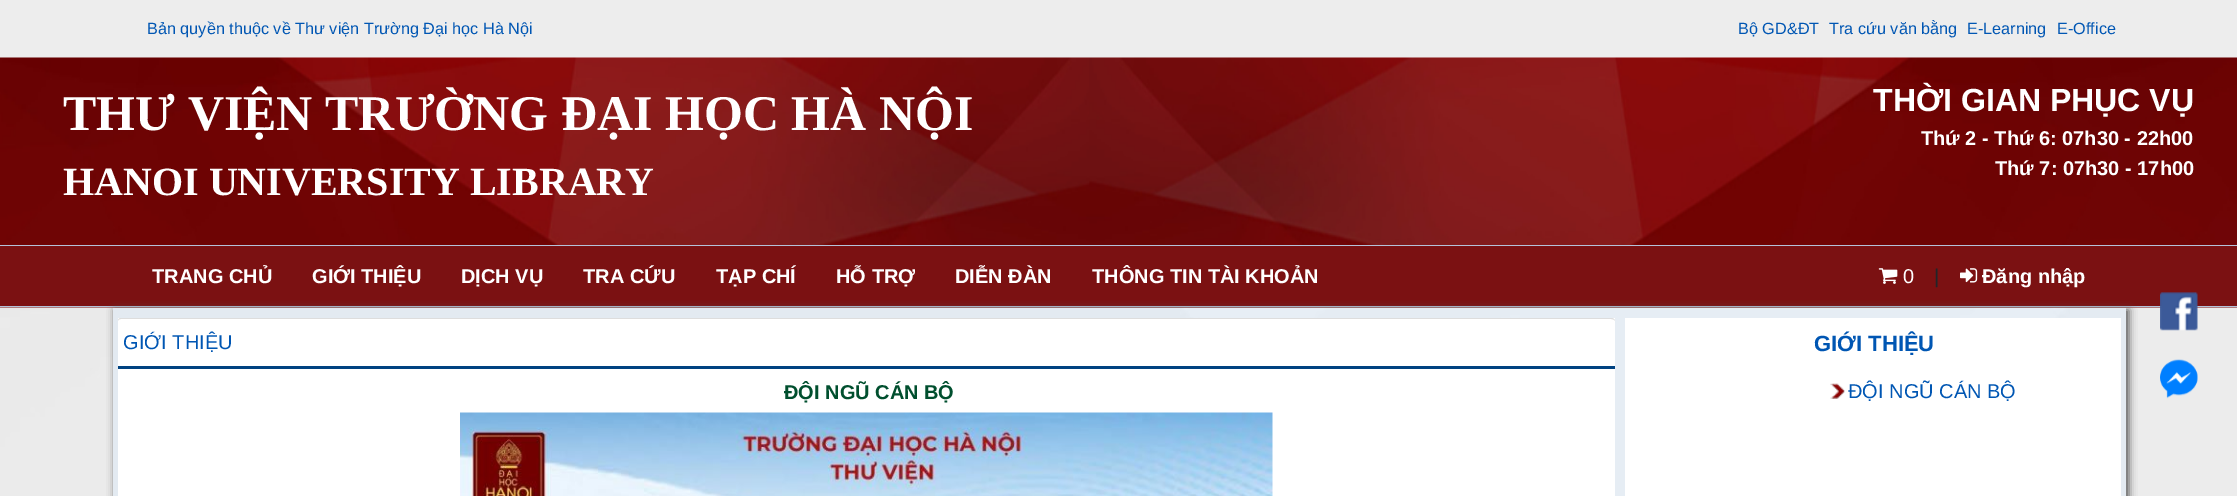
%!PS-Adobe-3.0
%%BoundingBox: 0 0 2237 496
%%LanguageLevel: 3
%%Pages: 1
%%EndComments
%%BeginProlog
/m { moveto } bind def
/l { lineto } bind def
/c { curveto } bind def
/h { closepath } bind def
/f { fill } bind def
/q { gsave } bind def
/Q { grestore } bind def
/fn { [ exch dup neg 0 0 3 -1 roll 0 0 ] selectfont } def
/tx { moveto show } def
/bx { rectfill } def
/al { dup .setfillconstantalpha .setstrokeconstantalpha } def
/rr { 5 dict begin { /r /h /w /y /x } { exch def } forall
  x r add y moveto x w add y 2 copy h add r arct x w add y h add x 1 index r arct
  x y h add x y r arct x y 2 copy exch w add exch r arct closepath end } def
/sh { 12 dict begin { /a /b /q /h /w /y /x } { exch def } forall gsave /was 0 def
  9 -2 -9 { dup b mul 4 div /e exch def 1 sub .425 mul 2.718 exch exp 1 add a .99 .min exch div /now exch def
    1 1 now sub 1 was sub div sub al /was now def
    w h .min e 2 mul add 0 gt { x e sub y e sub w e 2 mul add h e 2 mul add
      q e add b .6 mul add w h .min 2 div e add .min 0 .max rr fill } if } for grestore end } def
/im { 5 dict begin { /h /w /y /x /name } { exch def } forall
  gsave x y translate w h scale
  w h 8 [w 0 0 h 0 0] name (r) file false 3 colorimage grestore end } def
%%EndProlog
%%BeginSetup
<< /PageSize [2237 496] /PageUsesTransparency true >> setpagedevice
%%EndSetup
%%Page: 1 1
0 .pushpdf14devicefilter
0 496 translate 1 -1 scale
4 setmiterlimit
0.929 setgray
0 0 2237 496 bx
/LiberationSans-Regular 16.25 fn
0 0.337 0.702 setrgbcolor
(Bản quyền thuộc về Thư viện Trường Đại học Hà Nội) 147 34 tx
(Bộ GD&ĐT) 1738 34 tx
(Tra cứu văn bằng) 1829 34 tx
(E-Learning) 1967 34 tx
(E-Office) 2057 34 tx
(image0.raw) 0 57 2237 188 im
/LiberationSerif-Bold 50 fn
1 setgray
(THƯ VIỆN TRƯỜNG ĐẠI HỌC HÀ NỘI) 63 130 tx
/LiberationSerif-Bold 40 fn
(HANOI UNIVERSITY LIBRARY) 63 195 tx
/LiberationSans-Bold 32 fn
(THỜI GIAN PHỤC VỤ) 1873 111 tx
/LiberationSans-Bold 20 fn
(Thứ 2 - Thứ 6: 07h30 - 22h00) 1921 145 tx
(Thứ 7: 07h30 - 17h00) 1995 175 tx
0.482 0.067 0.071 setrgbcolor
0 246 2237 62 bx
0.71 0.761 0.851 setrgbcolor
0 245 2237 1 bx
0 306 2237 1 bx
1 setgray
(TRANG CHỦ) 152 283 tx
(GIỚI THIỆU) 312 283 tx
(DỊCH VỤ) 461 283 tx
(TRA CỨU) 583 283 tx
(TẠP CHÍ) 716 283 tx
(HỖ TRỢ) 836 283 tx
(DIỄN ĐÀN) 955 283 tx
(THÔNG TIN TÀI KHOẢN) 1092 283 tx
(image1.raw) 1878 268 20 16 im
/LiberationSans-Regular 20 fn
(0) 1903 283 tx
0.129 0.145 0.161 setrgbcolor
(|) 1934 283 tx
(image2.raw) 1960 268 18 15 im
/LiberationSans-Bold 20 fn
1 setgray
(Đăng nhập) 1982 283 tx
(image3.raw) 0 307 2237 189 im
q
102 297 m 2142 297 l 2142 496 l 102 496 l h 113 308 m 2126 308 l 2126 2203 l 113 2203 l h eoclip newpath
0.333 setgray
115 310 2014 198 0 4 1 sh
Q
0.35 al
0.835 0.914 0.992 setrgbcolor
113 308 2013 188 bx
1 al
1 setgray
118 318 1497 178 bx
0.867 setgray
121 318 m 119 318 118 319 118 321 c 118 320 119 319 121 319 c 1611 319 l 1613 319 1615 320 1615 321 c 1615 319 1613 318 1611 318 c h f
0 0.259 0.506 setrgbcolor
118 366 1497 3 bx
/LiberationSans-Regular 20 fn
0 0.337 0.702 setrgbcolor
(GIỚI THIỆU) 123 349 tx
/LiberationSans-Bold 20 fn
0 0.31 0.18 setrgbcolor
(ĐỘI NGŨ CÁN BỘ) 784 399 tx
(image4.raw) 460 412 813 84 im
1 setgray
1625 318 496 178 bx
/LiberationSans-Bold 22 fn
0 0.337 0.702 setrgbcolor
(GIỚI THIỆU) 1814 351 tx
(image5.raw) 1830 383 15 16 im
/LiberationSans-Regular 20 fn
(ĐỘI NGŨ CÁN BỘ) 1848 398 tx
(image6.raw) 2160 292 38 39 im
(image7.raw) 2160 359 38 40 im
.poppdf14devicefilter showpage
%%EOF
